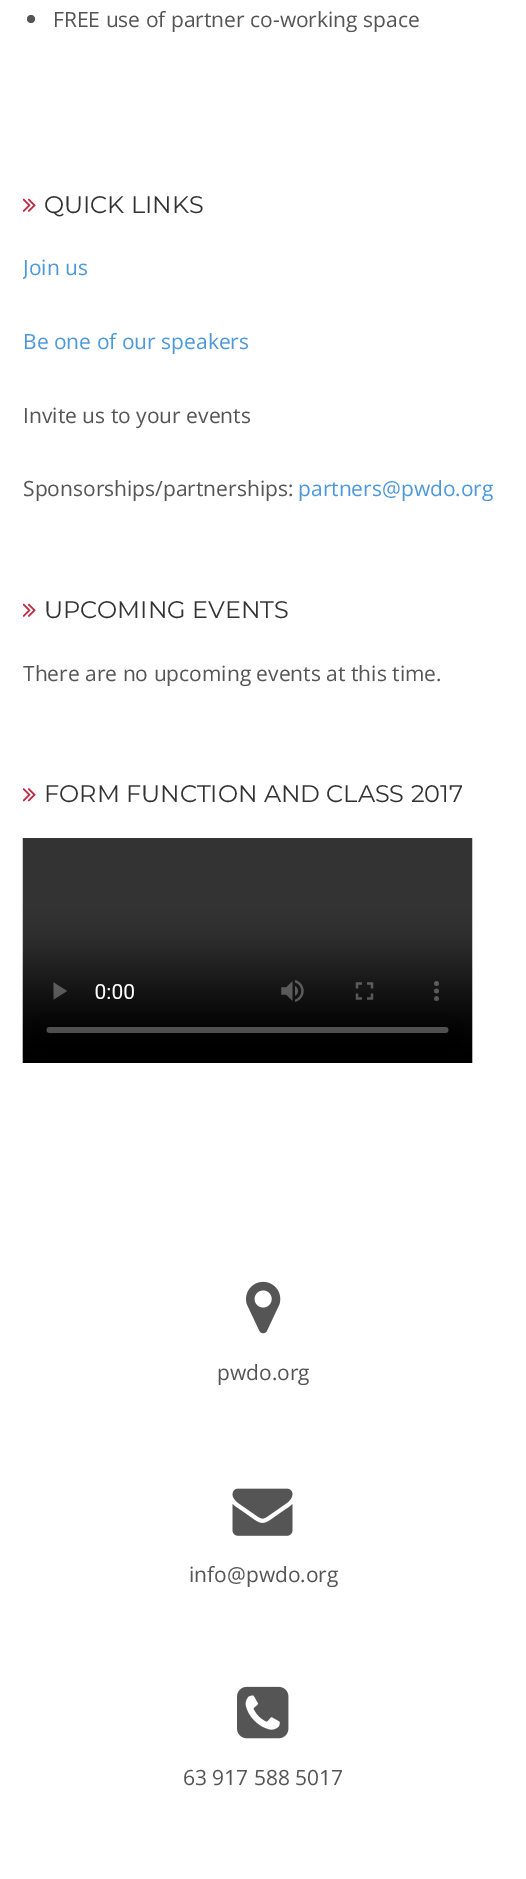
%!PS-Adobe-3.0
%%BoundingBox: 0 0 526 1879
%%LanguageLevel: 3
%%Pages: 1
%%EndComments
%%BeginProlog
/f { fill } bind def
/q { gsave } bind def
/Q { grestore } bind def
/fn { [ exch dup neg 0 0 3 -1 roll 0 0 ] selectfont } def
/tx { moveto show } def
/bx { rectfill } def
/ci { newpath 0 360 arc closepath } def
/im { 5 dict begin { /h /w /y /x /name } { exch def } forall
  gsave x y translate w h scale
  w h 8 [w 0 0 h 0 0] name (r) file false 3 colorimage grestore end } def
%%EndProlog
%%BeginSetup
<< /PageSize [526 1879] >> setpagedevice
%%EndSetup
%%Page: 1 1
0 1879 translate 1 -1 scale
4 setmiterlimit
1 setgray
0 0 526 1879 bx
0.333 setgray
31 19 4 ci f
/OpenSans-Regular 21 fn
(FREE use of partner co-working space) 53 27 tx
(image0.raw) 23 198 13 14 im
/Montserrat-Regular 24 fn
0.2 setgray
(QUICK LINKS) 44 213 tx
q
23 192 481 351 rectclip
/OpenSans-Regular 21 fn
0.298 0.596 0.863 setrgbcolor
(Join us) 23 275 tx
Q
/OpenSans-Regular 21 fn
0.298 0.596 0.863 setrgbcolor
(Be one of our speakers) 23 349 tx
0.333 setgray
(Invite us to your events) 23 423 tx
(Sponsorships/partnerships:) 23 496 tx
0.298 0.596 0.863 setrgbcolor
(partners@pwdo.org) 298 496 tx
(image0.raw) 23 603 13 14 im
/Montserrat-Regular 24 fn
0.2 setgray
(UPCOMING EVENTS) 44 618 tx
/OpenSans-Regular 21 fn
0.333 setgray
(There are no upcoming events at this time.) 23 681 tx
(image1.raw) 23 788 13 14 im
/Montserrat-Regular 24 fn
0.2 setgray
(FORM FUNCTION AND CLASS 2017) 44 802 tx
(image2.raw) 22 838 451 225 im
(image3.raw) 246 1281 35 53 im
/OpenSans-Regular 21 fn
0.333 setgray
(pwdo.org) 217 1380 tx
(image4.raw) 232 1488 61 48 im
(info@pwdo.org) 189 1582 tx
(image5.raw) 237 1686 52 53 im
(63 917 588 5017) 183 1785 tx
showpage
%%EOF
